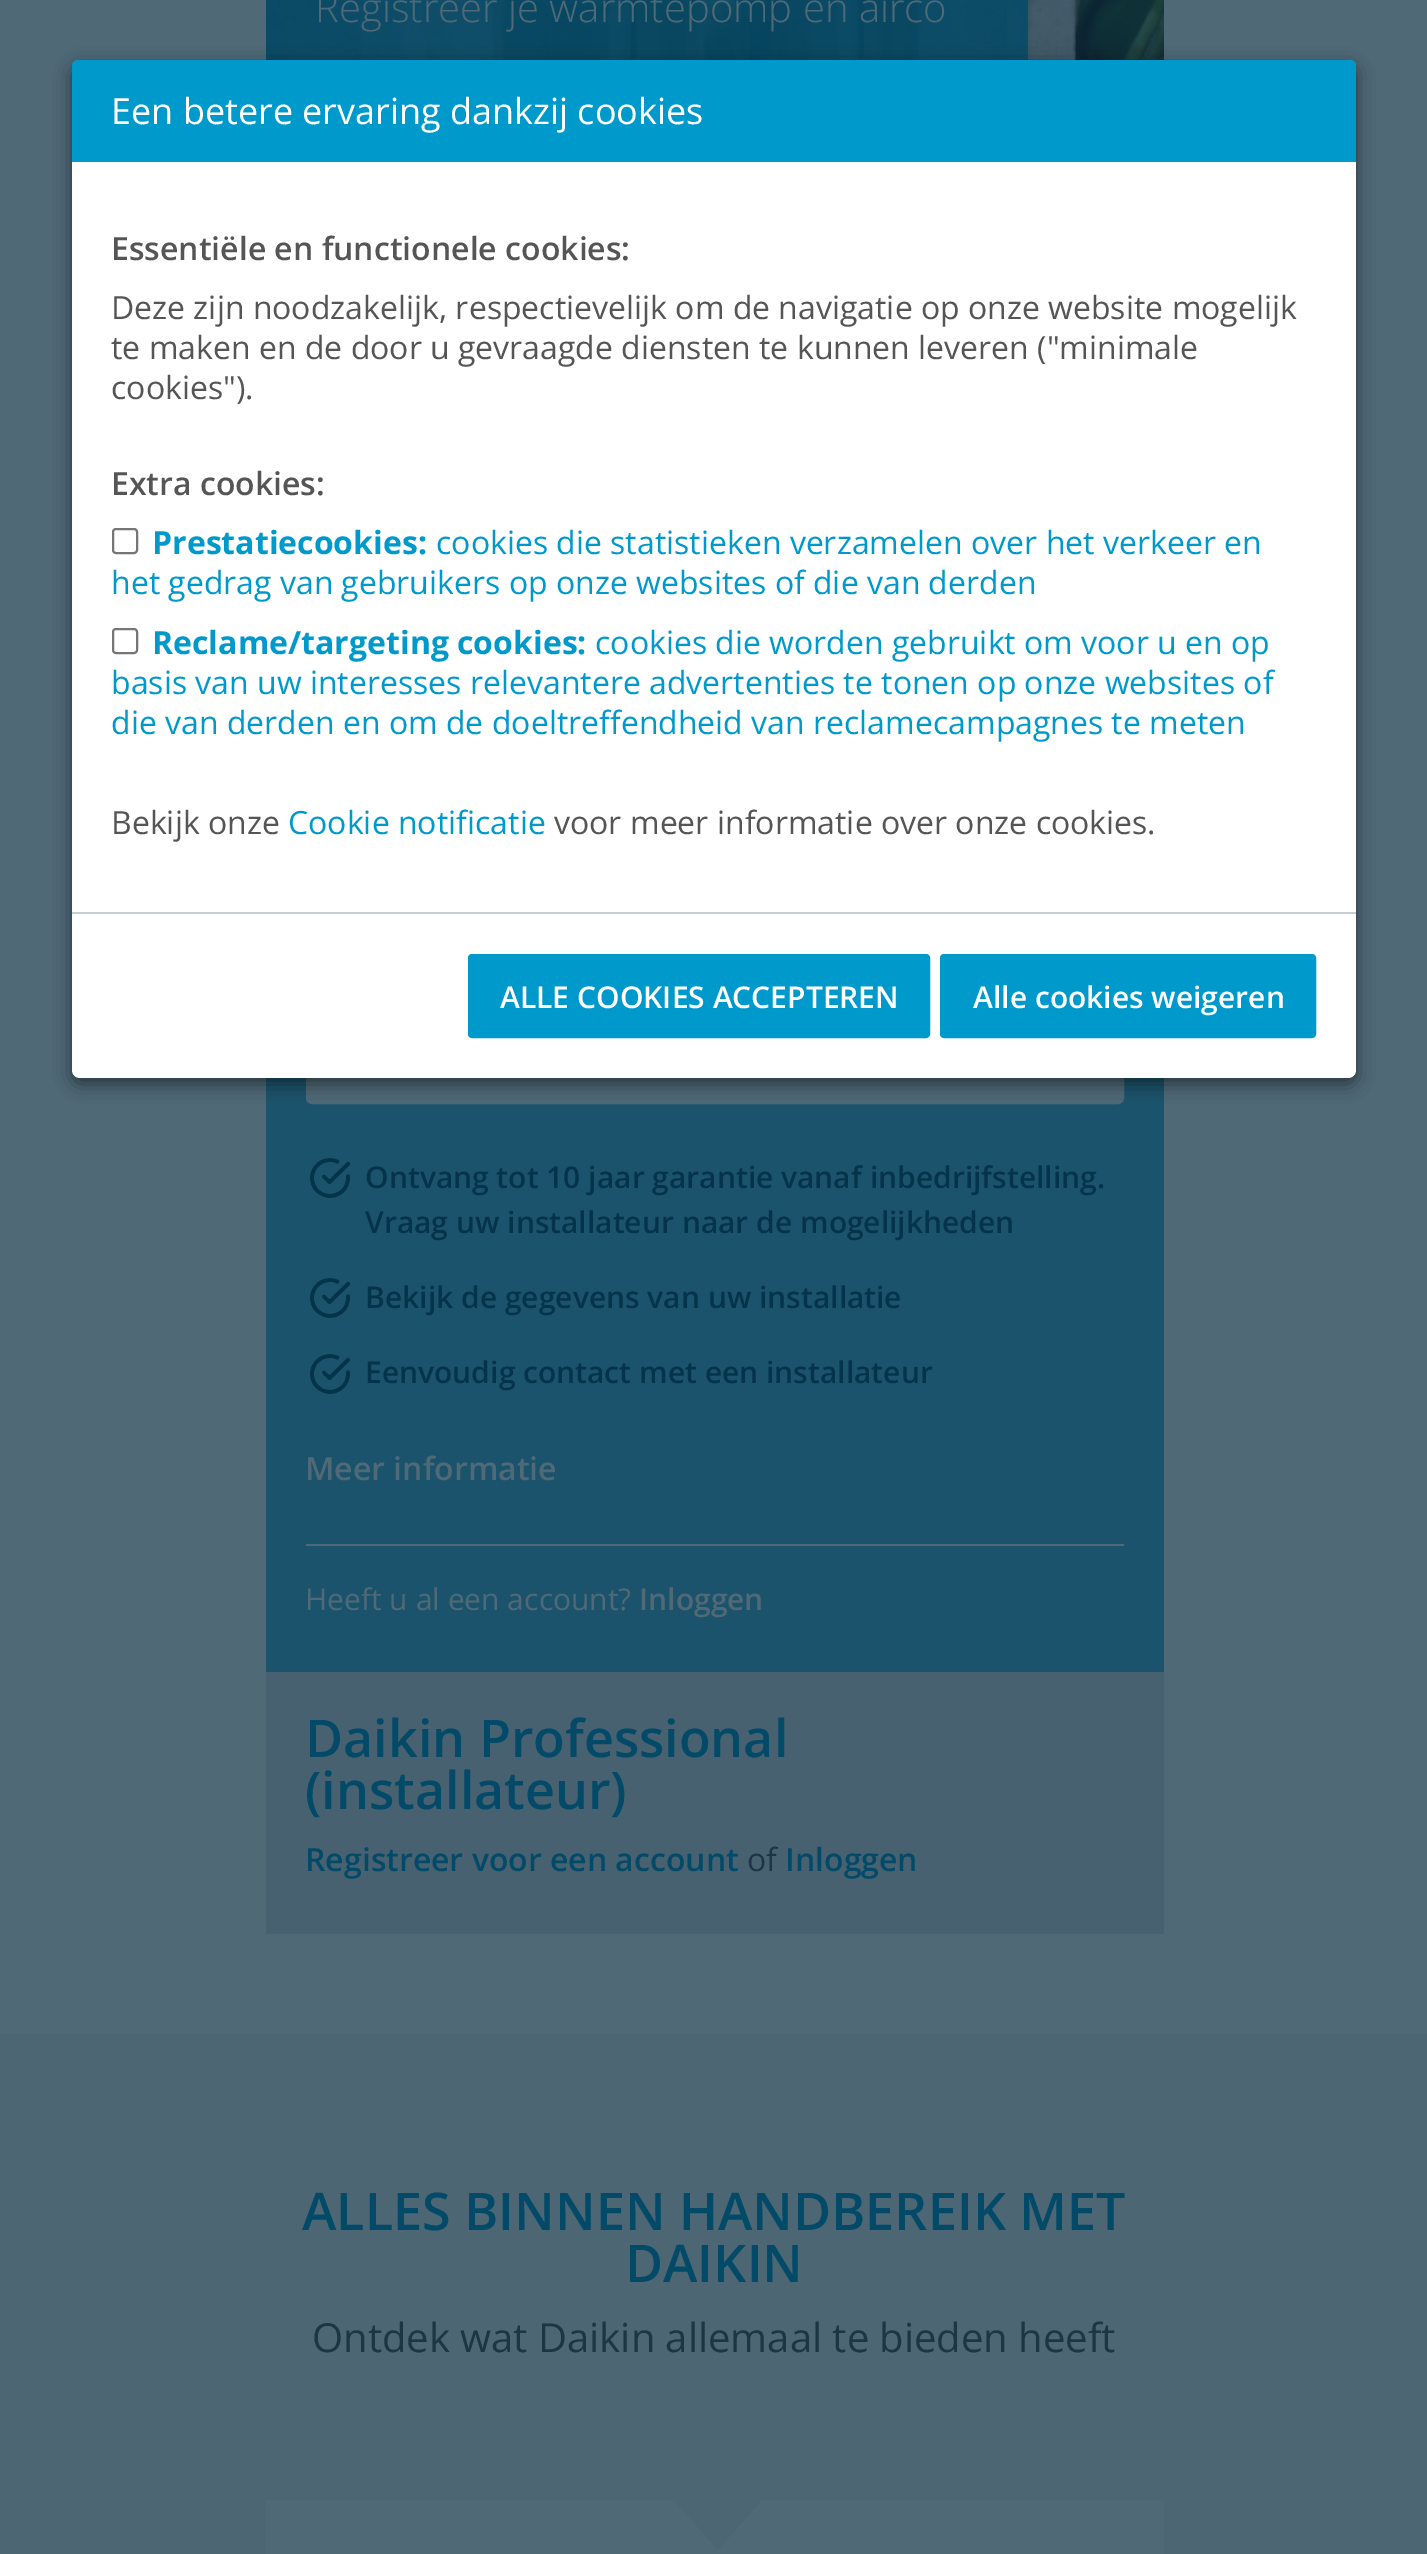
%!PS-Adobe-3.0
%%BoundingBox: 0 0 1427 2554
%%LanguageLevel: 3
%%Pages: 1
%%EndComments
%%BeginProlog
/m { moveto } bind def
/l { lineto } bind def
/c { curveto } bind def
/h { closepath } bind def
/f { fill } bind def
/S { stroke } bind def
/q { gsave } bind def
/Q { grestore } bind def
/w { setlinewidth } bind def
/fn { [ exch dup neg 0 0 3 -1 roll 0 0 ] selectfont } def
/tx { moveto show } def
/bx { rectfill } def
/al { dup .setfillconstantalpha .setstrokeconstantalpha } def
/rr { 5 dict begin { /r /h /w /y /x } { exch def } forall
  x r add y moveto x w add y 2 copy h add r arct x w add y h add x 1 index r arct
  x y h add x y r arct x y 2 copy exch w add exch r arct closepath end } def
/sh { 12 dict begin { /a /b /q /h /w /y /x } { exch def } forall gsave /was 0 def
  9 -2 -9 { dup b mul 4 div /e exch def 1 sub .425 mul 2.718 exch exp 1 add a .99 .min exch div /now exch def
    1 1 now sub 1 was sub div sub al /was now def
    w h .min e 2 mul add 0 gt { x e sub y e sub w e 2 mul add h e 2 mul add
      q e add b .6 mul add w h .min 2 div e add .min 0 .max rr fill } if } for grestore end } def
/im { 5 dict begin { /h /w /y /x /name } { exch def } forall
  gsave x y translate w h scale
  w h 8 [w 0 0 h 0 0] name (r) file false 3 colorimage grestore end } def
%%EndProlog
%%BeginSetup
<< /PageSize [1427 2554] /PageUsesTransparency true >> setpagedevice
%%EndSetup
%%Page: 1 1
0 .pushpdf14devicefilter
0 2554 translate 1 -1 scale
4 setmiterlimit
0.31 0.412 0.467 setrgbcolor
0 0 1427 2554 bx
(image0.raw) 266 0 898 60 im
0.8 al
0.008 0.29 0.408 setrgbcolor
266 0 762 60 bx
/OpenSans-Light 40 fn
1 al
0.31 0.412 0.467 setrgbcolor
(Registreer je warmtepomp en airco) 315 22 tx
0.278 0.38 0.439 setrgbcolor
266 1672 898 262 bx
0.11 0.325 0.424 setrgbcolor
266 1078 898 594 bx
0.31 0.412 0.467 setrgbcolor
308 998 814 104 4 rr q f Q
4 w
S
(image1.raw) 310 1158 40 40 im
/OpenSans-SemiBold 30 fn
0.016 0.204 0.294 setrgbcolor
(Ontvang tot 10 jaar garantie vanaf inbedrijfstelling.) 365 1188 tx
(Vraag uw installateur naar de mogelijkheden) 365 1233 tx
(image2.raw) 310 1278 40 40 im
(Bekijk de gegevens van uw installatie) 365 1308 tx
(image2.raw) 310 1354 40 40 im
(Eenvoudig contact met een installateur) 365 1383 tx
/OpenSans-SemiBold 32 fn
0.31 0.412 0.467 setrgbcolor
(Meer informatie) 305 1480 tx
306 1544 818 2 bx
/OpenSans-Regular 30 fn
(Heeft u al een account?) 305 1610 tx
/OpenSans-SemiBold 30 fn
(Inloggen) 639 1610 tx
/OpenSans-SemiBold 52 fn
0.008 0.29 0.408 setrgbcolor
(Daikin Professional) 305 1757 tx
(\(installateur\)) 305 1809 tx
/OpenSans-SemiBold 32 fn
(Registreer voor een account) 305 1871 tx
/OpenSans-Regular 32 fn
0.11 0.212 0.267 setrgbcolor
(of) 747 1871 tx
/OpenSans-SemiBold 32 fn
0.008 0.29 0.408 setrgbcolor
(Inloggen) 785 1871 tx
0.298 0.4 0.455 setrgbcolor
0 2034 1427 520 bx
/OpenSans-SemiBold 52 fn
0.008 0.29 0.408 setrgbcolor
(ALLES BINNEN HANDBEREIK MET) 302 2230 tx
(DAIKIN) 625 2282 tx
/OpenSans-Regular 40 fn
0.11 0.212 0.267 setrgbcolor
(Ontdek wat Daikin allemaal te bieden heeft) 312 2352 tx
0.31 0.412 0.467 setrgbcolor
266 2500 898 54 bx
0.298 0.4 0.455 setrgbcolor
674 2500 m 762 2500 l 718 2550 l h f
0 setgray
72 66 1284 1018 8 9 0.5 sh
1 setgray
72 60 1284 1018 8 rr f
0 0.6 0.8 setrgbcolor
78 60 m 1350 60 l 1353.5 60 1356 62.5 1356 66 c 1356 162 l 72 162 l 72 66 l 72 62.5 74.5 60 78 60 c h f
/OpenSans-Regular 36 fn
1 setgray
(Een betere ervaring dankzij cookies) 111 124 tx
/OpenSans-SemiBold 32 fn
0.333 setgray
(Essentiële en functionele cookies:) 111 260 tx
/OpenSans-Regular 32 fn
(Deze zijn noodzakelijk, respectievelijk om de navigatie op onze website mogelijk) 111 319 tx
(te maken en de door u gevraagde diensten te kunnen leveren \("minimale) 111 359 tx
(cookies"\).) 111 399 tx
/OpenSans-SemiBold 32 fn
(Extra cookies:) 111 495 tx
0.463 setgray
2 w
113 529 24 24 3 rr S
/OpenSans-Bold 32 fn
0 0.6 0.8 setrgbcolor
(Prestatiecookies:) 152 554 tx
/OpenSans-Regular 32 fn
(cookies die statistieken verzamelen over het verkeer en) 436 554 tx
(het gedrag van gebruikers op onze websites of die van derden) 111 594 tx
0.463 setgray
113 629 24 24 3 rr S
/OpenSans-Bold 32 fn
0 0.6 0.8 setrgbcolor
(Reclame/targeting cookies:) 152 654 tx
/OpenSans-Regular 32 fn
(cookies die worden gebruikt om voor u en op) 595 654 tx
(basis van uw interesses relevantere advertenties te tonen op onze websites of) 111 694 tx
(die van derden en om de doeltreffendheid van reclamecampagnes te meten) 111 734 tx
0.333 setgray
(Bekijk onze) 111 834 tx
0 0.6 0.8 setrgbcolor
(Cookie notificatie) 288 834 tx
0.333 setgray
(voor meer informatie over onze cookies.) 554 834 tx
0.769 0.812 0.835 setrgbcolor
72 912 1284 2 bx
0 0.6 0.8 setrgbcolor
469 955 460 82 3 rr q f Q
S
/OpenSans-SemiBold 30 fn
1 setgray
(ALLE COOKIES ACCEPTEREN) 500 1008 tx
0 0.6 0.8 setrgbcolor
941 955 374 82 3 rr q f Q
S
1 setgray
(Alle cookies weigeren) 973 1008 tx
.poppdf14devicefilter showpage
%%EOF
